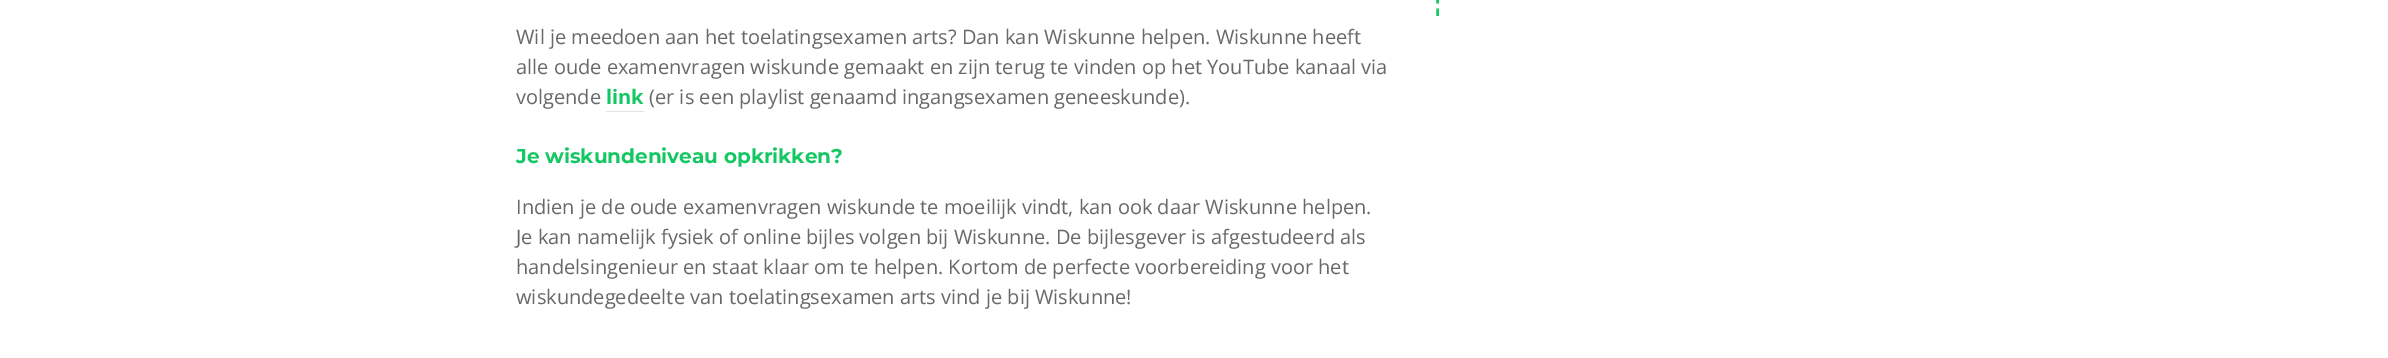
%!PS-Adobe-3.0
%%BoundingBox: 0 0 2388 358
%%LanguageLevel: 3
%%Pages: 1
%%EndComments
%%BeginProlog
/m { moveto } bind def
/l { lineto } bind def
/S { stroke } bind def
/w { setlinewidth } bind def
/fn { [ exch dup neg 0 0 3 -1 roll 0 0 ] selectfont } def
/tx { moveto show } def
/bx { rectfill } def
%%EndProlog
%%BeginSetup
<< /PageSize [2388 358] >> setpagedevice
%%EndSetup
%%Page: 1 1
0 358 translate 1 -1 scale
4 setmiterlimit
1 setgray
0 0 2388 358 bx
0.078 0.78 0.384 setrgbcolor
2.5 w
[7.5 5] 0 setdash
1437.5 -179 m 1437.5 16 l S
/OpenSans-Regular 20 fn
0.408 setgray
(Wil je meedoen aan het toelatingsexamen arts? Dan kan Wiskunne helpen. Wiskunne heeft) 516 44 tx
(alle oude examenvragen wiskunde gemaakt en zijn terug te vinden op het YouTube kanaal via) 516 74 tx
(volgende) 516 104 tx
/OpenSans-Bold 20 fn
0.078 0.78 0.384 setrgbcolor
(link) 606 104 tx
0.886 setgray
606 111 38 1 bx
/OpenSans-Regular 20 fn
0.408 setgray
(\(er is een playlist genaamd ingangsexamen geneeskunde\).) 649 104 tx
/Montserrat-Bold 20 fn
0.078 0.78 0.384 setrgbcolor
(Je wiskundeniveau opkrikken?) 516 163 tx
/OpenSans-Regular 20 fn
0.408 setgray
(Indien je de oude examenvragen wiskunde te moeilijk vindt, kan ook daar Wiskunne helpen.) 516 214 tx
(Je kan namelijk fysiek of online bijles volgen bij Wiskunne. De bijlesgever is afgestudeerd als) 516 244 tx
(handelsingenieur en staat klaar om te helpen. Kortom de perfecte voorbereiding voor het) 516 274 tx
(wiskundegedeelte van toelatingsexamen arts vind je bij Wiskunne!) 516 304 tx
showpage
%%EOF
